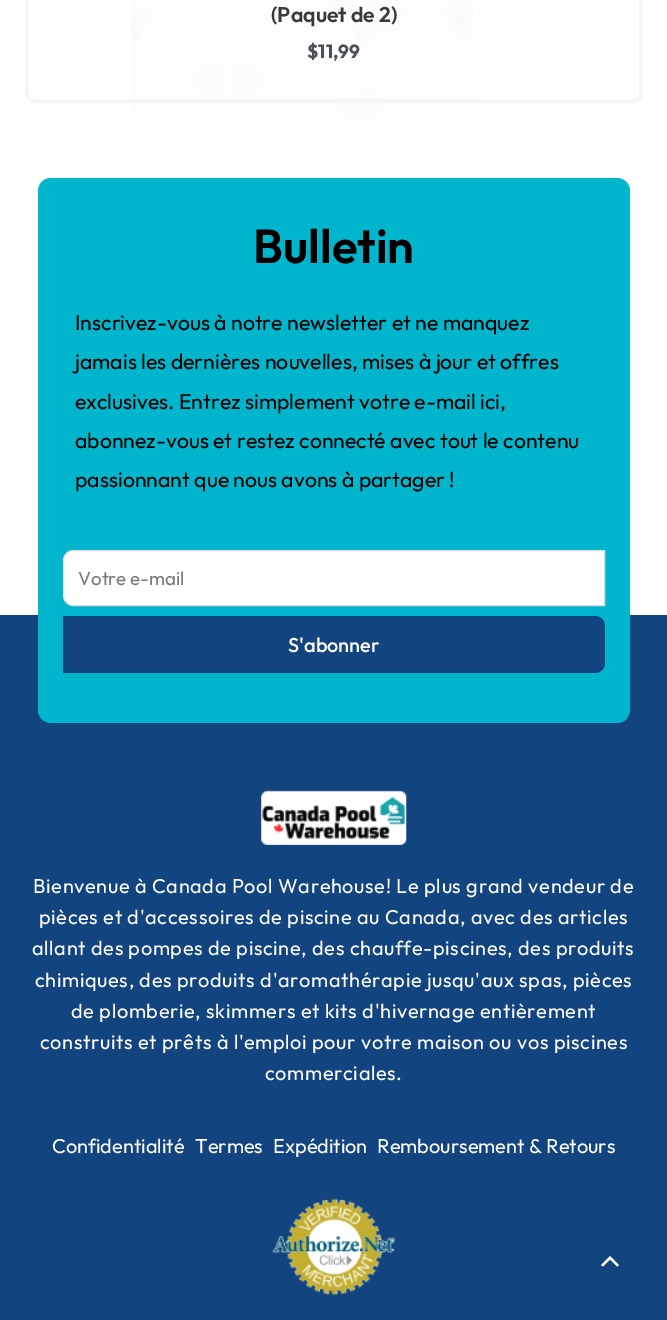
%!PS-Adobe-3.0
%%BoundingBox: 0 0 667 1320
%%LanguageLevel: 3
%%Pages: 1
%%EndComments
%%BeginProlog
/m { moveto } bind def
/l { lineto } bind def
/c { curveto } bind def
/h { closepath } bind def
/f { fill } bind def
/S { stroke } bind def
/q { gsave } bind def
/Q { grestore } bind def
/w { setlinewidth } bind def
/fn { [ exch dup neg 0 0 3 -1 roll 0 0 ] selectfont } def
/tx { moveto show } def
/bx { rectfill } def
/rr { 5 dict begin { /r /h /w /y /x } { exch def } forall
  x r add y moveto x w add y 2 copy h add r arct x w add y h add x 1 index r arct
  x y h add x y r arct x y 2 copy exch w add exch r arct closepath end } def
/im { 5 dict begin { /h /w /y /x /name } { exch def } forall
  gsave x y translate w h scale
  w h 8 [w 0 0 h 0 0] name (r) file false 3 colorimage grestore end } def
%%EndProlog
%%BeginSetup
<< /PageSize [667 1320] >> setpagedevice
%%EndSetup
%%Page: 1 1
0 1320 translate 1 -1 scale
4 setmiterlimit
1 setgray
0 0 667 1320 bx
(image0.raw) 131 0 342 119 im
0.965 setgray
4 w
27 -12 614 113 8 rr S
/Outfit-SemiBold 21.25 fn
0.227 setgray
(\(Paquet de 2\)) 271 22 tx
/Outfit-Bold 19 fn
0.294 0.31 0.345 setrgbcolor
($11,99) 307 58 tx
0.071 0.267 0.498 setrgbcolor
0 615 667 705 bx
0.004 0.71 0.8 setrgbcolor
38 178 592 545 13 rr f
/Outfit-SemiBold 47.5 fn
0 setgray
(Bulletin) 253 263 tx
/Outfit-Regular 21.25 fn
(Inscrivez-vous à notre newsletter et ne manquez) 75 330 tx
(jamais les dernières nouvelles, mises à jour et offres) 75 369 tx
(exclusives. Entrez simplement votre e-mail ici,) 75 409 tx
(abonnez-vous et restez connecté avec tout le contenu) 75 448 tx
(passionnant que nous avons à partager !) 75 487 tx
1 setgray
73 550.5 m 604.5 550.5 l 604.5 605.5 l 73 605.5 l 68 605.5 63.5 601 63.5 596 c 63.5 560 l 63.5 555 68 550.5 73 550.5 c h q f Q
0.867 setgray
1 w
S
/Outfit-Regular 18.75 fn
0.475 0.478 0.486 setrgbcolor
(Votre e-mail) 78 585 tx
0.071 0.267 0.498 setrgbcolor
63 616 m 595 616 l 600.5 616 605 620.5 605 626 c 605 663 l 605 668.5 600.5 673 595 673 c 63 673 l h f
/Outfit-Medium 20 fn
1 setgray
(S'abonner) 288 652 tx
(image1.raw) 261 790 146 55 im
/Outfit-Regular 20 fn
33 893 m 0.62 0 (Bienvenue à Canada Pool Warehouse! Le plus grand vendeur de) ashow
39 924 m 0.62 0 (pièces et d'accessoires de piscine au Canada, avec des articles) ashow
32 955 m 0.62 0 (allant des pompes de piscine, des chauffe-piscines, des produits) ashow
35 987 m 0.62 0 (chimiques, des produits d'aromathérapie jusqu'aux spas, pièces) ashow
71 1018 m 0.62 0 (de plomberie, skimmers et kits d'hivernage entièrement) ashow
40 1049 m 0.62 0 (construits et prêts à l'emploi pour votre maison ou vos piscines) ashow
265 1080 m 0.62 0 (commerciales.) ashow
(Confidentialité) 52 1153 tx
(Termes) 195 1153 tx
(Expédition) 273 1153 tx
(Remboursement & Retours) 377 1153 tx
(image2.raw) 272 1198 124 98 im
619 1265 m 610 1256 l 601 1265 l 603 1266.5 l 610 1259.5 l 617 1266.5 l h f
showpage
%%EOF
